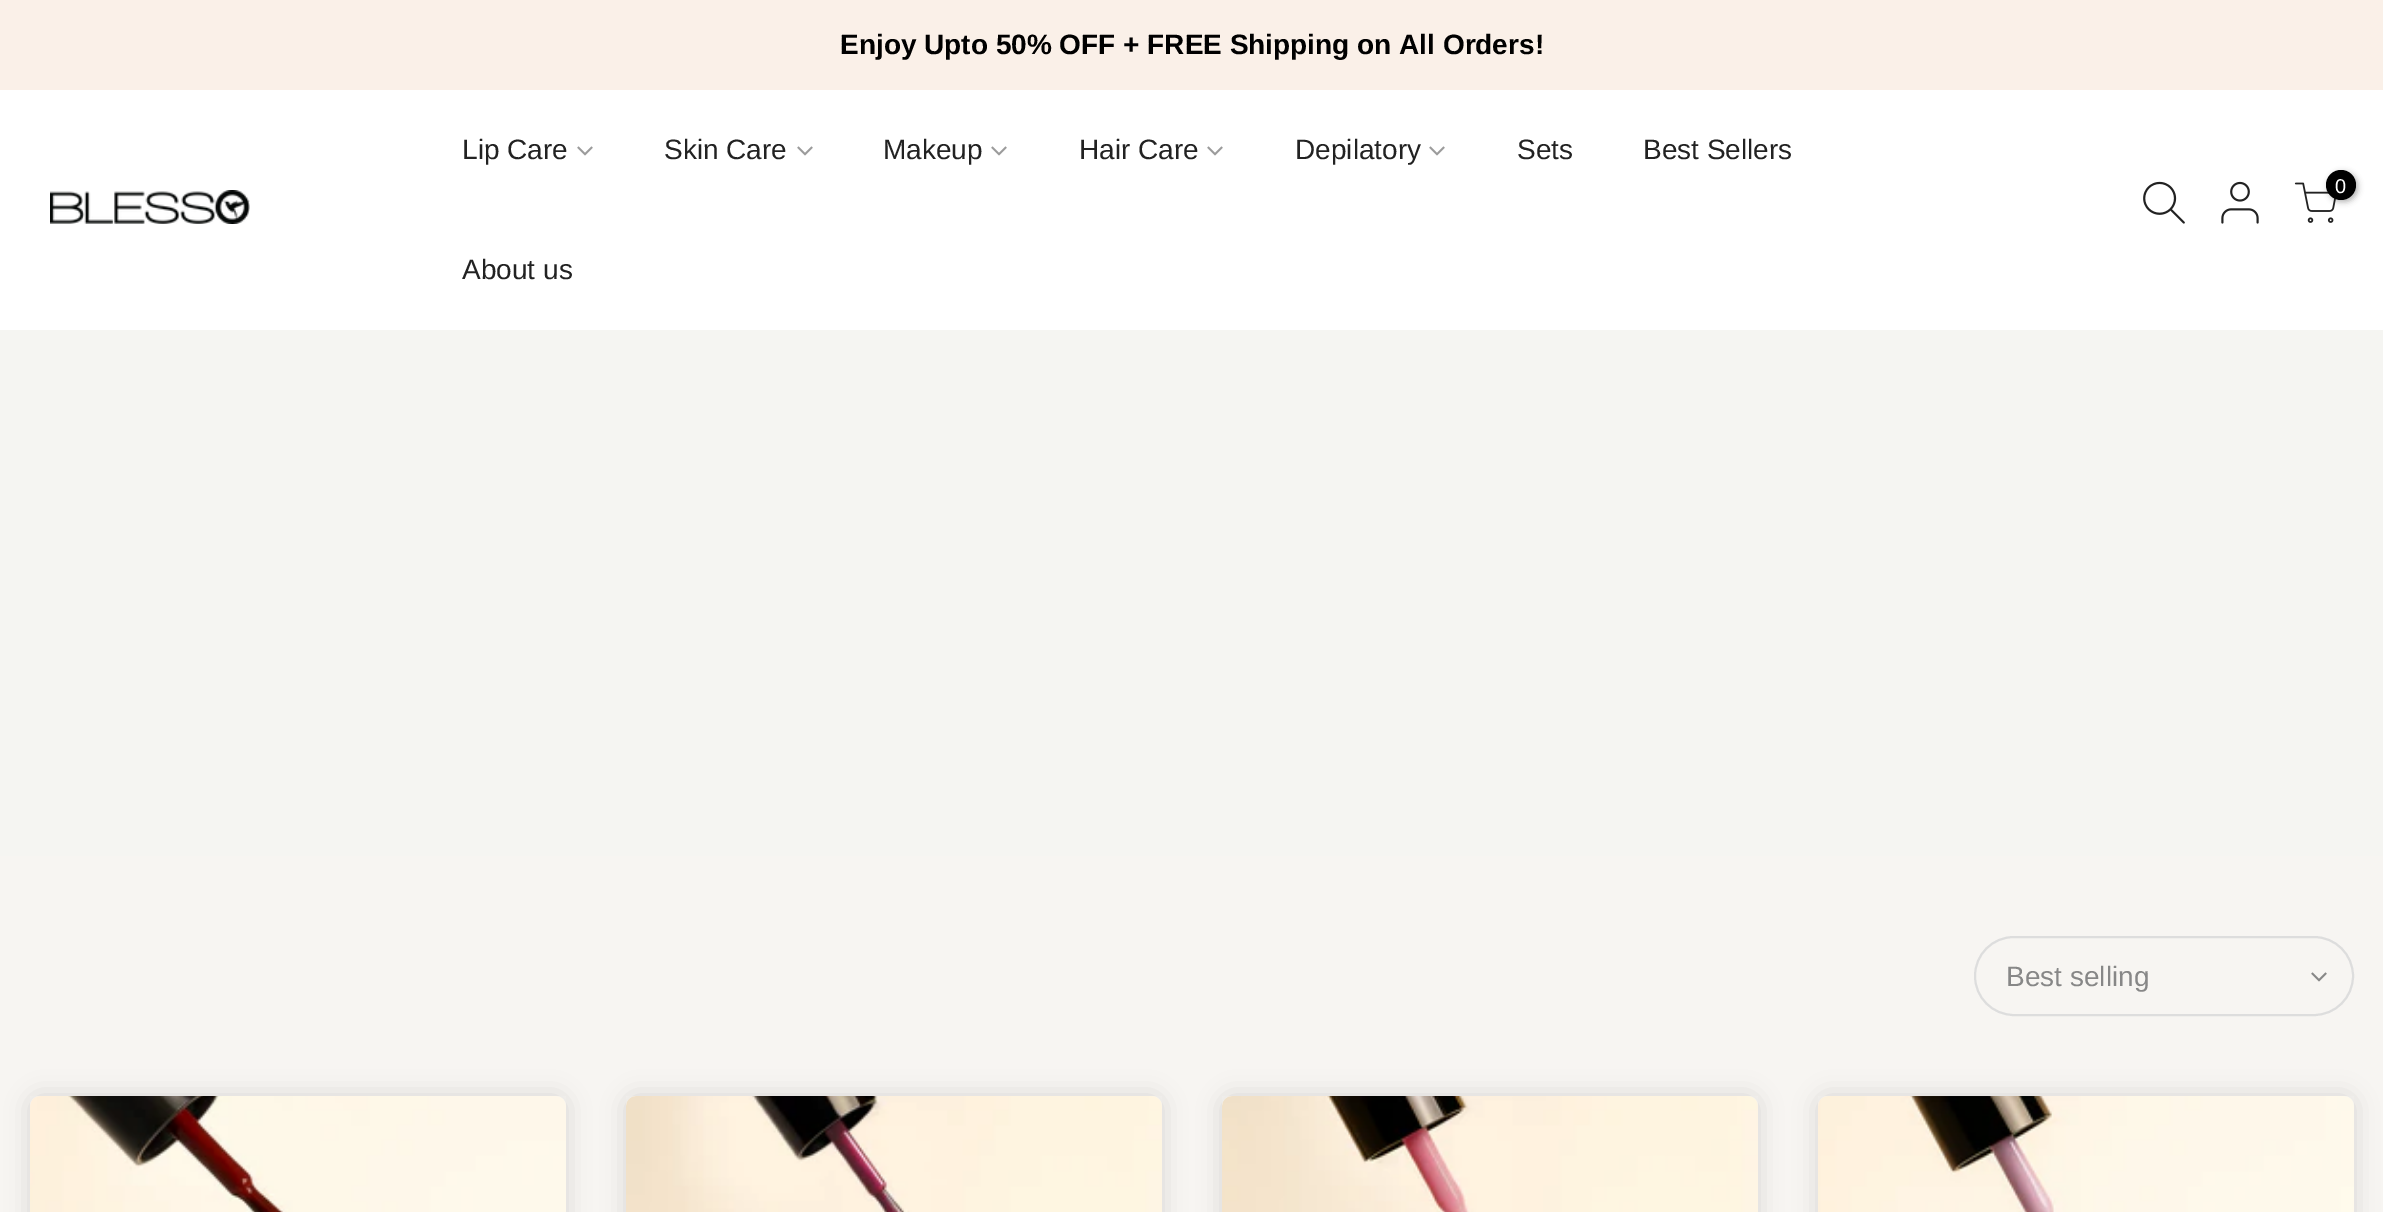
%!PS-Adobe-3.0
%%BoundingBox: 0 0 2383 1212
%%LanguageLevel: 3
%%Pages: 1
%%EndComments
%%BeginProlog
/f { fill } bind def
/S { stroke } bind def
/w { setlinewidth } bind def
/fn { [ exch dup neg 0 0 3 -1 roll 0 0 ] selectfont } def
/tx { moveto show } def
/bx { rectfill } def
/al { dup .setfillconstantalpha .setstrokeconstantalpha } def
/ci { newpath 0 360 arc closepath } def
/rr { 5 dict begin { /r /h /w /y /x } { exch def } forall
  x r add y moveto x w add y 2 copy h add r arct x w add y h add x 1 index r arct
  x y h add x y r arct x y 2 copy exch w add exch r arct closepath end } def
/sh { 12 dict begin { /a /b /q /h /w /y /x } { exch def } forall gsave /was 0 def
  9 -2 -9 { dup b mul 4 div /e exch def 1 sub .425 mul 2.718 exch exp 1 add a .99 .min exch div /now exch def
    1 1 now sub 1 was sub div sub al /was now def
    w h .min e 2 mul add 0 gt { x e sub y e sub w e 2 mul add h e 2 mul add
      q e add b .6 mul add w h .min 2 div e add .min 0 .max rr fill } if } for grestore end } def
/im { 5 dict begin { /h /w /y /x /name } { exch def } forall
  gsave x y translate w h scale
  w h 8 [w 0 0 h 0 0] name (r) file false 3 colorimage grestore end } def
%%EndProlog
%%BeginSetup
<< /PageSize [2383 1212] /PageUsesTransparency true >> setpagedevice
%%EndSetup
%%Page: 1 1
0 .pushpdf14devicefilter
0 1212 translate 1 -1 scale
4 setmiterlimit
1 setgray
0 0 2383 1212 bx
0.98 0.941 0.91 setrgbcolor
0 0 2383 90 bx
/LiberationSans-Bold 28 fn
0 setgray
(Enjoy Upto 50% OFF + FREE Shipping on All Orders!) 840 54 tx
/LiberationSans-Regular 28 fn
0.133 setgray
(Lip Care) 462 159 tx
(image0.raw) 577 146 16 10 im
(Skin Care) 664 159 tx
(image0.raw) 797 146 16 10 im
(Makeup) 883 159 tx
(image0.raw) 991 146 16 10 im
(Hair Care) 1079 159 tx
(image0.raw) 1207 146 16 10 im
(Depilatory) 1295 159 tx
(image0.raw) 1429 146 16 10 im
(Sets) 1517 159 tx
(Best Sellers) 1643 159 tx
(About us) 462 279 tx
(image1.raw) 2143 181 42 43 im
(image2.raw) 2221 181 38 43 im
(image3.raw) 2294 182 42 41 im
0 setgray
2328 172 30 30 15 3 0.3 sh
2341 185 15 ci f
/LiberationSans-Regular 20 fn
1 setgray
(0) 2335 193 tx
(image4.raw) 50 190 200 34 im
0.969 0.961 0.949 setrgbcolor
0 856 2383 356 bx
0.961 0.961 0.949 setrgbcolor
0 330 2383 526 bx
0.867 setgray
2 w
1975 937 378 78 39 rr S
/LiberationSans-Regular 28 fn
0.529 setgray
(Best selling) 2006 986 tx
(image5.raw) 2311 972 16 10 im
0 setgray
30 1096 536 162 10 12 0.12 sh
(image6.raw) 30 1096 536 116 im
626 1096 536 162 10 12 0.12 sh
(image7.raw) 626 1096 536 116 im
1222 1096 536 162 10 12 0.12 sh
(image8.raw) 1222 1096 536 116 im
1818 1096 536 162 10 12 0.12 sh
(image9.raw) 1818 1096 536 116 im
.poppdf14devicefilter showpage
%%EOF
